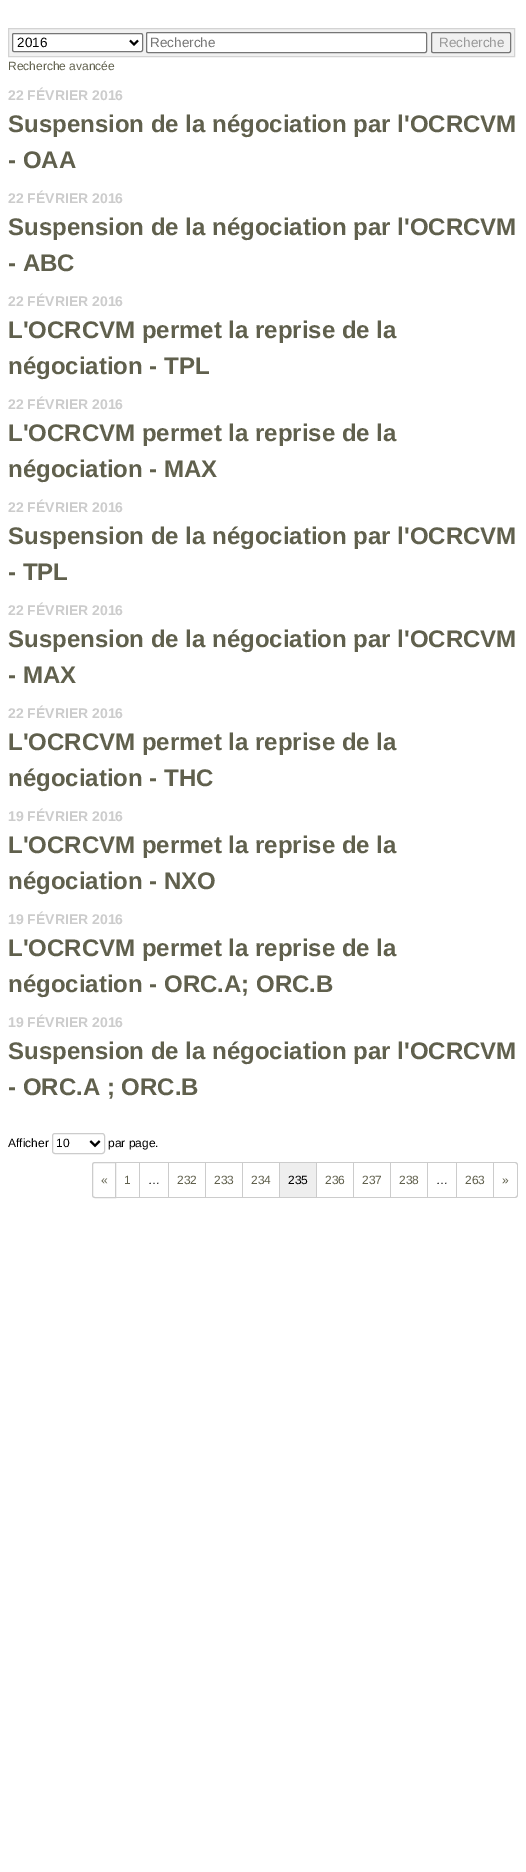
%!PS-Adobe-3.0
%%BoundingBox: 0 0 526 1872
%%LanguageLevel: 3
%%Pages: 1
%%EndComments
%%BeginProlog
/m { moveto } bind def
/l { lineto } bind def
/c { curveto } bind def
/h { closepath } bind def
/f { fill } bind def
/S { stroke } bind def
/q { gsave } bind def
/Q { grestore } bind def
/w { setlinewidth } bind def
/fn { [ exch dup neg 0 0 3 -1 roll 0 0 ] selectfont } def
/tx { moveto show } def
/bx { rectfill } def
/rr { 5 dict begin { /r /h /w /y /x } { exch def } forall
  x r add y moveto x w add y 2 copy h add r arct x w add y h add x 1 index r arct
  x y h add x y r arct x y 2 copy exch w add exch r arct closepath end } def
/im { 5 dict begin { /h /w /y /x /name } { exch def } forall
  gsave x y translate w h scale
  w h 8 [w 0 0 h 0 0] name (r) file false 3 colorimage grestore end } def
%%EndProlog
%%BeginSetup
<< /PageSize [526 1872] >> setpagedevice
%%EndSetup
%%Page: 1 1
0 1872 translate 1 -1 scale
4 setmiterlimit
1 setgray
0 0 526 1872 bx
0.945 setgray
8.5 28.5 m 514.5 28.5 l 514.5 56.5 l 8.5 56.5 l h q f Q
0.827 setgray
S
1 setgray
12.5 33.5 130 18 1.5 rr q f Q
0.463 setgray
S
0 setgray
2 w
130 40.5 m 134 44.5 l 138 40.5 l S
/LiberationSans-Regular 13.5 fn
(2016) 17 47 tx
1 setgray
146.5 32.5 280 20 1.5 rr q f Q
0.463 setgray
1 w
S
0.459 setgray
(Recherche) 150 47 tx
0.463 setgray
431.5 32.5 79 20 1.5 rr S
0.6 setgray
(Recherche) 439 47 tx
/LiberationSans-Regular 12 fn
0.376 0.376 0.302 setrgbcolor
(Recherche avancée) 8 70 tx
/LiberationSans-Bold 14 fn
0.8 setgray
(22 FÉVRIER 2016) 8 100 tx
/LiberationSans-Bold 24 fn
0.376 0.376 0.302 setrgbcolor
(Suspension de la négociation par l'OCRCVM) 8 132 tx
(- OAA) 8 168 tx
/LiberationSans-Bold 14 fn
0.8 setgray
(22 FÉVRIER 2016) 8 203 tx
/LiberationSans-Bold 24 fn
0.376 0.376 0.302 setrgbcolor
(Suspension de la négociation par l'OCRCVM) 8 235 tx
(- ABC) 8 271 tx
/LiberationSans-Bold 14 fn
0.8 setgray
(22 FÉVRIER 2016) 8 306 tx
/LiberationSans-Bold 24 fn
0.376 0.376 0.302 setrgbcolor
(L'OCRCVM permet la reprise de la) 8 338 tx
(négociation - TPL) 8 374 tx
/LiberationSans-Bold 14 fn
0.8 setgray
(22 FÉVRIER 2016) 8 409 tx
/LiberationSans-Bold 24 fn
0.376 0.376 0.302 setrgbcolor
(L'OCRCVM permet la reprise de la) 8 441 tx
(négociation - MAX) 8 477 tx
/LiberationSans-Bold 14 fn
0.8 setgray
(22 FÉVRIER 2016) 8 512 tx
/LiberationSans-Bold 24 fn
0.376 0.376 0.302 setrgbcolor
(Suspension de la négociation par l'OCRCVM) 8 544 tx
(- TPL) 8 580 tx
/LiberationSans-Bold 14 fn
0.8 setgray
(22 FÉVRIER 2016) 8 615 tx
/LiberationSans-Bold 24 fn
0.376 0.376 0.302 setrgbcolor
(Suspension de la négociation par l'OCRCVM) 8 647 tx
(- MAX) 8 683 tx
/LiberationSans-Bold 14 fn
0.8 setgray
(22 FÉVRIER 2016) 8 718 tx
/LiberationSans-Bold 24 fn
0.376 0.376 0.302 setrgbcolor
(L'OCRCVM permet la reprise de la) 8 750 tx
(négociation - THC) 8 786 tx
/LiberationSans-Bold 14 fn
0.8 setgray
(19 FÉVRIER 2016) 8 821 tx
/LiberationSans-Bold 24 fn
0.376 0.376 0.302 setrgbcolor
(L'OCRCVM permet la reprise de la) 8 853 tx
(négociation - NXO) 8 889 tx
/LiberationSans-Bold 14 fn
0.8 setgray
(19 FÉVRIER 2016) 8 924 tx
/LiberationSans-Bold 24 fn
0.376 0.376 0.302 setrgbcolor
(L'OCRCVM permet la reprise de la) 8 956 tx
(négociation - ORC.A; ORC.B) 8 992 tx
/LiberationSans-Bold 14 fn
0.8 setgray
(19 FÉVRIER 2016) 8 1027 tx
/LiberationSans-Bold 24 fn
0.376 0.376 0.302 setrgbcolor
(Suspension de la négociation par l'OCRCVM) 8 1059 tx
(- ORC.A ; ORC.B) 8 1095 tx
/LiberationSans-Regular 12 fn
0 setgray
(Afficher) 8 1147 tx
0.8 setgray
52.5 1133.5 52 20 2.5 rr S
0 setgray
(10) 56 1147 tx
(image0.raw) 89 1140 12 8 im
(par page.) 108 1147 tx
0.8 setgray
95 1162.5 m 115.5 1162.5 l 115.5 1197.5 l 95 1197.5 l 93.5 1197.5 92.5 1196.5 92.5 1195 c 92.5 1165 l 92.5 1163.5 93.5 1162.5 95 1162.5 c h S
0.376 0.376 0.302 setrgbcolor
(«) 101 1184 tx
0.8 setgray
116 1162 378 1 bx
139 1162 1 36 bx
116 1197 24 1 bx
0.376 0.376 0.302 setrgbcolor
(1) 124 1184 tx
0.8 setgray
168 1162 1 36 bx
140 1197 29 1 bx
0 setgray
(…) 148 1184 tx
0.8 setgray
205 1162 1 36 bx
169 1197 37 1 bx
0.376 0.376 0.302 setrgbcolor
(232) 177 1184 tx
0.8 setgray
242 1162 1 36 bx
206 1197 37 1 bx
0.376 0.376 0.302 setrgbcolor
(233) 214 1184 tx
0.8 setgray
279 1162 1 36 bx
243 1197 37 1 bx
0.376 0.376 0.302 setrgbcolor
(234) 251 1184 tx
0.933 setgray
280 1163 36 34 bx
0.8 setgray
316 1162 1 36 bx
280 1197 37 1 bx
0 setgray
(235) 288 1184 tx
0.8 setgray
353 1162 1 36 bx
317 1197 37 1 bx
0.376 0.376 0.302 setrgbcolor
(236) 325 1184 tx
0.8 setgray
390 1162 1 36 bx
354 1197 37 1 bx
0.376 0.376 0.302 setrgbcolor
(237) 362 1184 tx
0.8 setgray
427 1162 1 36 bx
391 1197 37 1 bx
0.376 0.376 0.302 setrgbcolor
(238) 399 1184 tx
0.8 setgray
456 1162 1 36 bx
428 1197 29 1 bx
0 setgray
(…) 436 1184 tx
0.8 setgray
493 1162 1 36 bx
457 1197 37 1 bx
0.376 0.376 0.302 setrgbcolor
(263) 465 1184 tx
0.8 setgray
494 1162 m 515 1162 l 516.5 1162 518 1163.5 518 1165 c 518 1195 l 518 1196.5 516.5 1198 515 1198 c 494 1198 l h 494 1163 m 515 1163 l 516 1163 517 1164 517 1165 c 517 1195 l 517 1196 516 1197 515 1197 c 494 1197 l h eofill
0.376 0.376 0.302 setrgbcolor
(») 502 1184 tx
showpage
%%EOF
